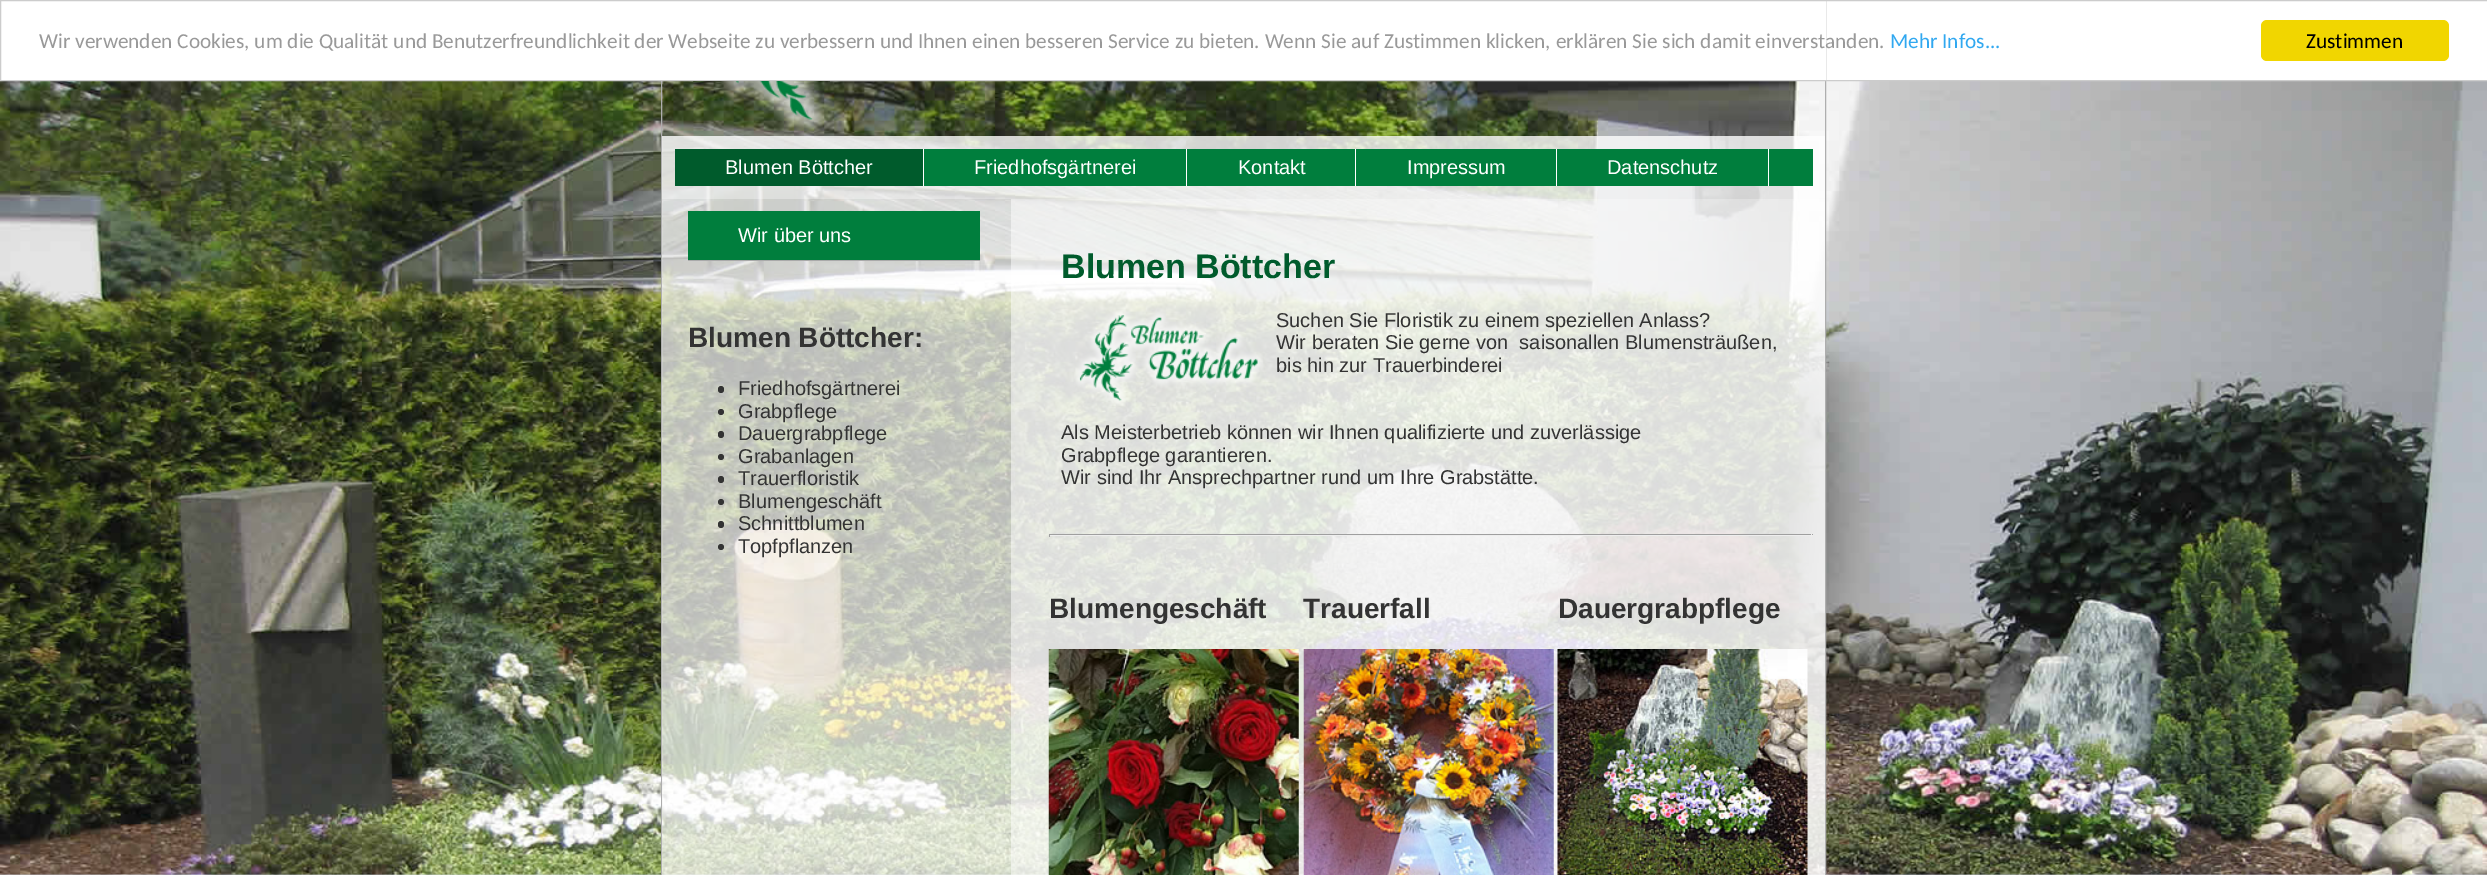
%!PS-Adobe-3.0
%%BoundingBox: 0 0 2487 875
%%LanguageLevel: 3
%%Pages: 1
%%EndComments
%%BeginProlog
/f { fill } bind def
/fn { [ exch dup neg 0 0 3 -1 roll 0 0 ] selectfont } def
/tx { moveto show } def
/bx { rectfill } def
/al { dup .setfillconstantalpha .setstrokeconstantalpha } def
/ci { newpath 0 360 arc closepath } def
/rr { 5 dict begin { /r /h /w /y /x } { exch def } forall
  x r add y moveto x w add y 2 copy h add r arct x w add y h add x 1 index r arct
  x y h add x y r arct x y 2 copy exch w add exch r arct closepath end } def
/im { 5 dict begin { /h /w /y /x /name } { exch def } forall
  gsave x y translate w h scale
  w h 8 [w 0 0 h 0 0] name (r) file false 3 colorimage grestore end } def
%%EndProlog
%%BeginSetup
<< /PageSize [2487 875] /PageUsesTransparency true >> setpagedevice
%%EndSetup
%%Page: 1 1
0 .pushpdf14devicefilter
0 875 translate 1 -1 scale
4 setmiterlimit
1 setgray
0 0 2487 875 bx
(image0.raw) 0 81 2487 794 im
0.682 setgray
661.5 -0.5 1164 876 rectstroke
1 setgray
661 1 1165 79 bx
0.8 setgray
0.5 0.5 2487 80 rectstroke
/Carlito-Regular 21.25 fn
0.6 setgray
(Wir verwenden Cookies, um die Qualität und Benutzerfreundlichkeit der Webseite zu verbessern und Ihnen einen besseren Service zu bieten. Wenn Sie auf Zustimmen klicken, erklären Sie sich damit einverstanden.) 39 48 tx
0.192 0.659 0.941 setrgbcolor
(Mehr Infos...) 1890 48 tx
0.945 0.839 0 setrgbcolor
2261 20 188 41 6 rr f
0 setgray
(Zustimmen) 2306 48 tx
(image1.raw) 693 81 137 55 im
0.8 al
1 setgray
662 136 1163 63 bx
1 al
0 0.494 0.239 setrgbcolor
924 149 889 37 bx
0 0.357 0.173 setrgbcolor
675 149 248 37 bx
1 setgray
923 149 1 37 bx
/LiberationSans-Regular 20 fn
(Blumen Böttcher) 725 174 tx
1186 149 1 37 bx
(Friedhofsgärtnerei) 974 174 tx
1355 149 1 37 bx
(Kontakt) 1238 174 tx
1556 149 1 37 bx
(Impressum) 1407 174 tx
1768 149 1 37 bx
(Datenschutz) 1607 174 tx
0.7 al
662 199 1163 676 bx
1 al
0 0.494 0.239 setrgbcolor
688 211 292 49 bx
0.667 setgray
688 260 292 1 bx
1 setgray
(Wir über uns) 738 242 tx
/LiberationSans-Bold 28 fn
0.2 setgray
(Blumen Böttcher:) 688 347 tx
718 386 6 7 3 rr f
/LiberationSans-Regular 20 fn
(Friedhofsgärtnerei) 738 395 tx
721 412 3 ci f
(Grabpflege) 738 418 tx
718 431 6 7 3 rr f
(Dauergrabpflege) 738 440 tx
721 457 3 ci f
(Grabanlagen) 738 463 tx
718 476 6 7 3 rr f
(Trauerfloristik) 738 485 tx
721 502 3 ci f
(Blumengeschäft) 738 508 tx
718 521 6 7 3 rr f
(Schnittblumen) 738 530 tx
721 547 3 ci f
(Topfpflanzen) 738 553 tx
0.5 al
1 setgray
1011 199 814 676 bx
/LiberationSans-Bold 34 fn
1 al
0 0.357 0.173 setrgbcolor
(Blumen Böttcher) 1061 278 tx
(image2.raw) 1074 310 189 96 im
/LiberationSans-Regular 20 fn
0.2 setgray
(Suchen Sie Floristik zu einem speziellen Anlass?) 1276 327 tx
(Wir beraten Sie gerne von  saisonallen Blumensträußen,) 1276 349 tx
(bis hin zur Trauerbinderei) 1276 372 tx
(Als Meisterbetrieb können wir Ihnen qualifizierte und zuverlässige) 1061 439 tx
(Grabpflege garantieren.) 1061 462 tx
(Wir sind Ihr Ansprechpartner rund um Ihre Grabstätte.) 1061 484 tx
0.624 setgray
1049 534 764 1 bx
0.933 setgray
1811 534 1 3 bx
1049 535 764 1 bx
0.624 setgray
1049 534 1 3 bx
/LiberationSans-Bold 28 fn
0.2 setgray
(Blumengeschäft) 1049 618 tx
(image3.raw) 1048 649 251 226 im
(Trauerfall) 1303 618 tx
(image4.raw) 1303 649 251 226 im
(Dauergrabpflege) 1558 618 tx
(image5.raw) 1557 649 251 226 im
.poppdf14devicefilter showpage
%%EOF
